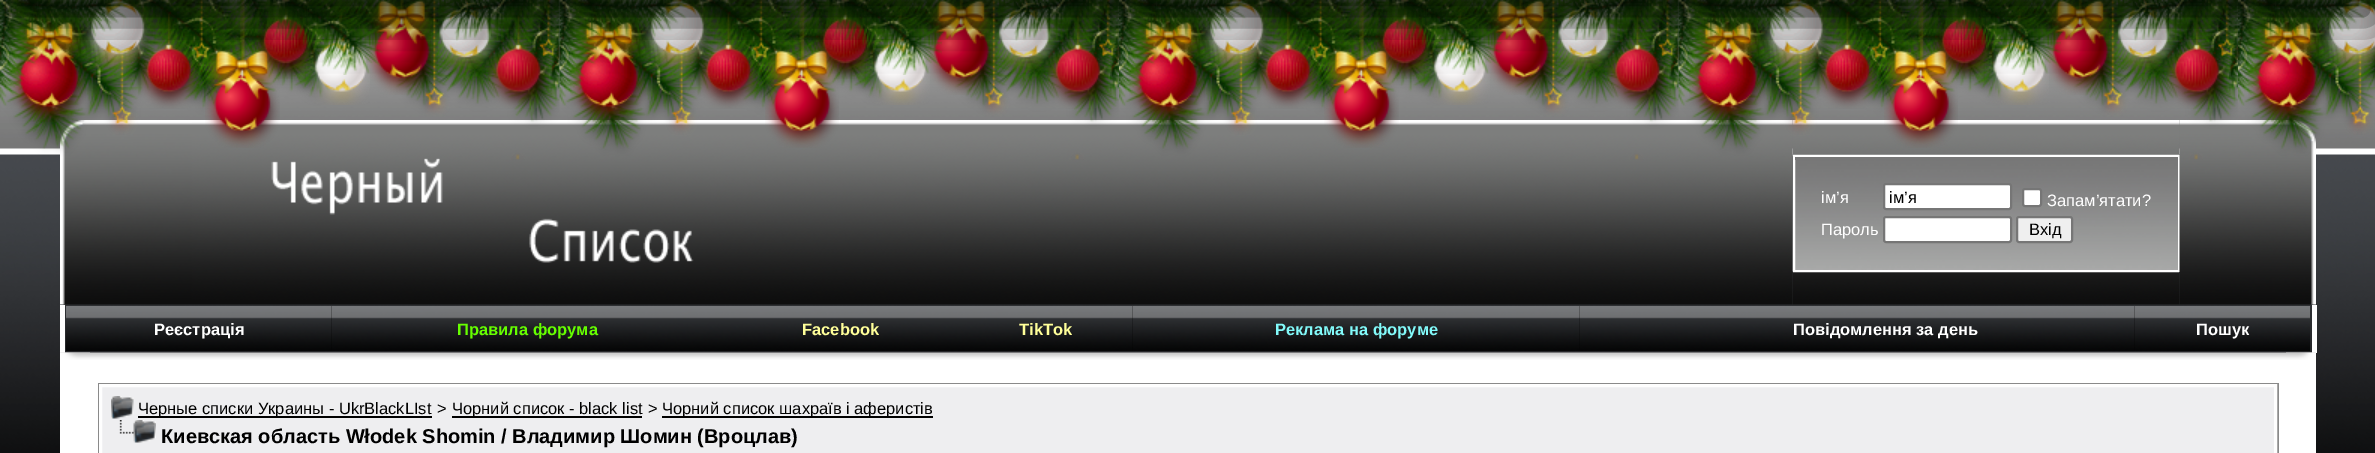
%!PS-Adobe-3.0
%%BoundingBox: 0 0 2375 453
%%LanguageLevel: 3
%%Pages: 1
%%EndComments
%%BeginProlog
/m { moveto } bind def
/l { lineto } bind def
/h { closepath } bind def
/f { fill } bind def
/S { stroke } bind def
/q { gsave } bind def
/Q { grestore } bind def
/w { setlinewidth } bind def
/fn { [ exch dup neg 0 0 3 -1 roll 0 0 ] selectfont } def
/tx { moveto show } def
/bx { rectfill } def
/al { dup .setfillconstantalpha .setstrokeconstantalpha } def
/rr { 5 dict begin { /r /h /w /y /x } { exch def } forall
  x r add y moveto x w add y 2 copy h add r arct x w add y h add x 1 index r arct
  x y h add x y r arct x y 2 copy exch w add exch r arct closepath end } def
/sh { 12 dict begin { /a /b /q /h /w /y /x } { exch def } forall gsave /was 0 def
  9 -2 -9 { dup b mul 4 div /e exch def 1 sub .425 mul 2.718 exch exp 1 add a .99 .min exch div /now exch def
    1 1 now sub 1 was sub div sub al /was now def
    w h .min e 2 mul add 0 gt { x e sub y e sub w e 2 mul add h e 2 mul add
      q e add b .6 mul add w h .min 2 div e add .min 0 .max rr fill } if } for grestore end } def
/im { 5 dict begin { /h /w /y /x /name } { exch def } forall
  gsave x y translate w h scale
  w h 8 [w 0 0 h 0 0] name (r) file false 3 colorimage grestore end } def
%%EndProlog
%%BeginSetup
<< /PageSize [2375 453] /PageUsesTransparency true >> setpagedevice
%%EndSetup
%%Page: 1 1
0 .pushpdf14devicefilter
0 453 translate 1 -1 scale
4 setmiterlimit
1 setgray
0 0 2375 453 bx
(image0.raw) 0 0 2375 453 im
(image66.raw) 60 120 132 185 im
(image67.raw) 192 120 1601 185 im
(image68.raw) 271 158 423 105 im
(image69.raw) 1792 120 388 185 im
(image70.raw) 1792 154 388 118 im
2 w
1794 156 385 115 rectstroke
(image71.raw) 2179 120 5 185 im
(image72.raw) 2184 120 132 185 im
(image1.raw) 0 0 2375 160 im
(image3.raw) 10 0 76 122 im
(image2.raw) 0 0 38 106 im
(image5.raw) 81 0 73 71 im
(image4.raw) 37 0 92 40 im
(image6.raw) 205 0 75 148 im
(image7.raw) 255 0 60 79 im
(image13.raw) 306 9 64 96 im
(image8.raw) 265 0 43 46 im
(image10.raw) 365 0 73 95 im
(image9.raw) 307 0 76 75 im
(image11.raw) 431 0 69 74 im
(image12.raw) 138 13 61 96 im
(image16.raw) 488 15 61 94 im
(image14.raw) 433 0 118 42 im
(image15.raw) 550 0 10 104 im
(image18.raw) 570 0 76 123 im
(image17.raw) 559 0 38 106 im
(image20.raw) 640 0 74 70 im
(image19.raw) 597 0 91 40 im
(image21.raw) 765 0 74 148 im
(image22.raw) 814 0 61 79 im
(image28.raw) 866 9 64 96 im
(image23.raw) 825 0 42 46 im
(image25.raw) 925 0 72 95 im
(image24.raw) 867 0 75 75 im
(image26.raw) 990 0 69 73 im
(image27.raw) 698 13 60 96 im
(image31.raw) 1048 15 60 94 im
(image29.raw) 993 0 117 42 im
(image30.raw) 1110 0 9 104 im
(image33.raw) 1129 0 76 123 im
(image32.raw) 1119 0 38 106 im
(image35.raw) 1200 0 73 71 im
(image34.raw) 1156 0 92 40 im
(image36.raw) 1324 0 75 148 im
(image37.raw) 1374 0 60 79 im
(image43.raw) 1425 9 65 96 im
(image38.raw) 1384 0 43 46 im
(image40.raw) 1484 0 73 95 im
(image39.raw) 1426 0 76 75 im
(image41.raw) 1550 0 69 74 im
(image42.raw) 1257 13 61 96 im
(image46.raw) 1607 15 61 94 im
(image44.raw) 1552 0 118 42 im
(image45.raw) 1669 0 10 104 im
(image48.raw) 1689 0 76 123 im
(image47.raw) 1678 0 38 106 im
(image50.raw) 1759 0 74 70 im
(image49.raw) 1716 0 91 40 im
(image51.raw) 1884 0 74 148 im
(image52.raw) 1933 0 61 79 im
(image58.raw) 1985 9 64 96 im
(image53.raw) 1944 0 42 46 im
(image55.raw) 2044 0 72 95 im
(image54.raw) 1986 0 75 75 im
(image56.raw) 2109 0 69 73 im
(image57.raw) 1817 13 60 96 im
(image61.raw) 2167 15 60 94 im
(image59.raw) 2112 0 117 42 im
(image60.raw) 2229 0 9 104 im
(image63.raw) 2248 0 76 123 im
(image62.raw) 2238 0 38 106 im
(image65.raw) 2319 0 56 71 im
(image64.raw) 2275 0 92 40 im
0 setgray
0 -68 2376 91 0 22.5 0.75 sh
/LiberationSans-Regular 16.5 fn
1 setgray
(ім’я) 1821 203 tx
1884 184 127 25 2 rr q f Q
0.463 setgray
S
0 setgray
(ім’я) 1889 203 tx
1 setgray
2023 189 18 17 2 rr q f Q
0.463 setgray
S
1 setgray
(Запам’ятати?) 2047 206 tx
(Пароль) 1821 235 tx
1884 217 127 25 2 rr q f Q
0.463 setgray
S
0.937 setgray
2017 217 55 25 2 rr q f Q
0.463 setgray
S
0 setgray
(Вхід) 2029 235 tx
1 setgray
2312 305 5 48 bx
60 305 5 48 bx
(image73.raw) 66 306 266 45 im
/LiberationSans-Bold 16.5 fn
(Реєстрація) 154 335 tx
(image74.raw) 331 306 392 45 im
0.4 1 0 setrgbcolor
(Правила форума) 457 335 tx
(image75.raw) 723 306 234 45 im
1 1 0.6 setrgbcolor
(Facebook) 802 335 tx
(image76.raw) 957 306 176 45 im
(TikTok) 1019 335 tx
(image77.raw) 1132 306 448 45 im
0.51 0.98 0.98 setrgbcolor
(Реклама на форуме) 1275 335 tx
(image78.raw) 1579 306 56 45 im
(image79.raw) 1635 306 500 45 im
1 setgray
(Повідомлення за день) 1793 335 tx
(image80.raw) 2134 306 176 45 im
(Пошук) 2196 335 tx
(image81.raw) 60 352 2256 8 im
(image82.raw) 60 352 30 8 im
(image83.raw) 2286 352 30 8 im
60 360 2256 93 bx
0.541 setgray
98 383 2181 70 bx
0.933 0.933 0.941 setrgbcolor
100.5 385.5 m 2275.5 385.5 l 2275.5 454.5 l 100.5 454.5 l h q f Q
0.996 setgray
3 w
S
(image84.raw) 111 396 23 23 im
0 setgray
138 416 294 2 bx
/LiberationSans-Regular 16.5 fn
(Черные списки Украины - UkrBlackLIst) 138 414 tx
(>) 437 414 tx
452 416 190 2 bx
(Чорний список - black list) 452 414 tx
(>) 648 414 tx
662 416 271 2 bx
(Чорний список шахраїв і аферистів) 662 414 tx
(image85.raw) 119 420 37 23 im
/LiberationSans-Bold 20 fn
(Киевская область Włodek Shomin / Владимир Шомин \(Вроцлав\)) 161 443 tx
.poppdf14devicefilter showpage
%%EOF
